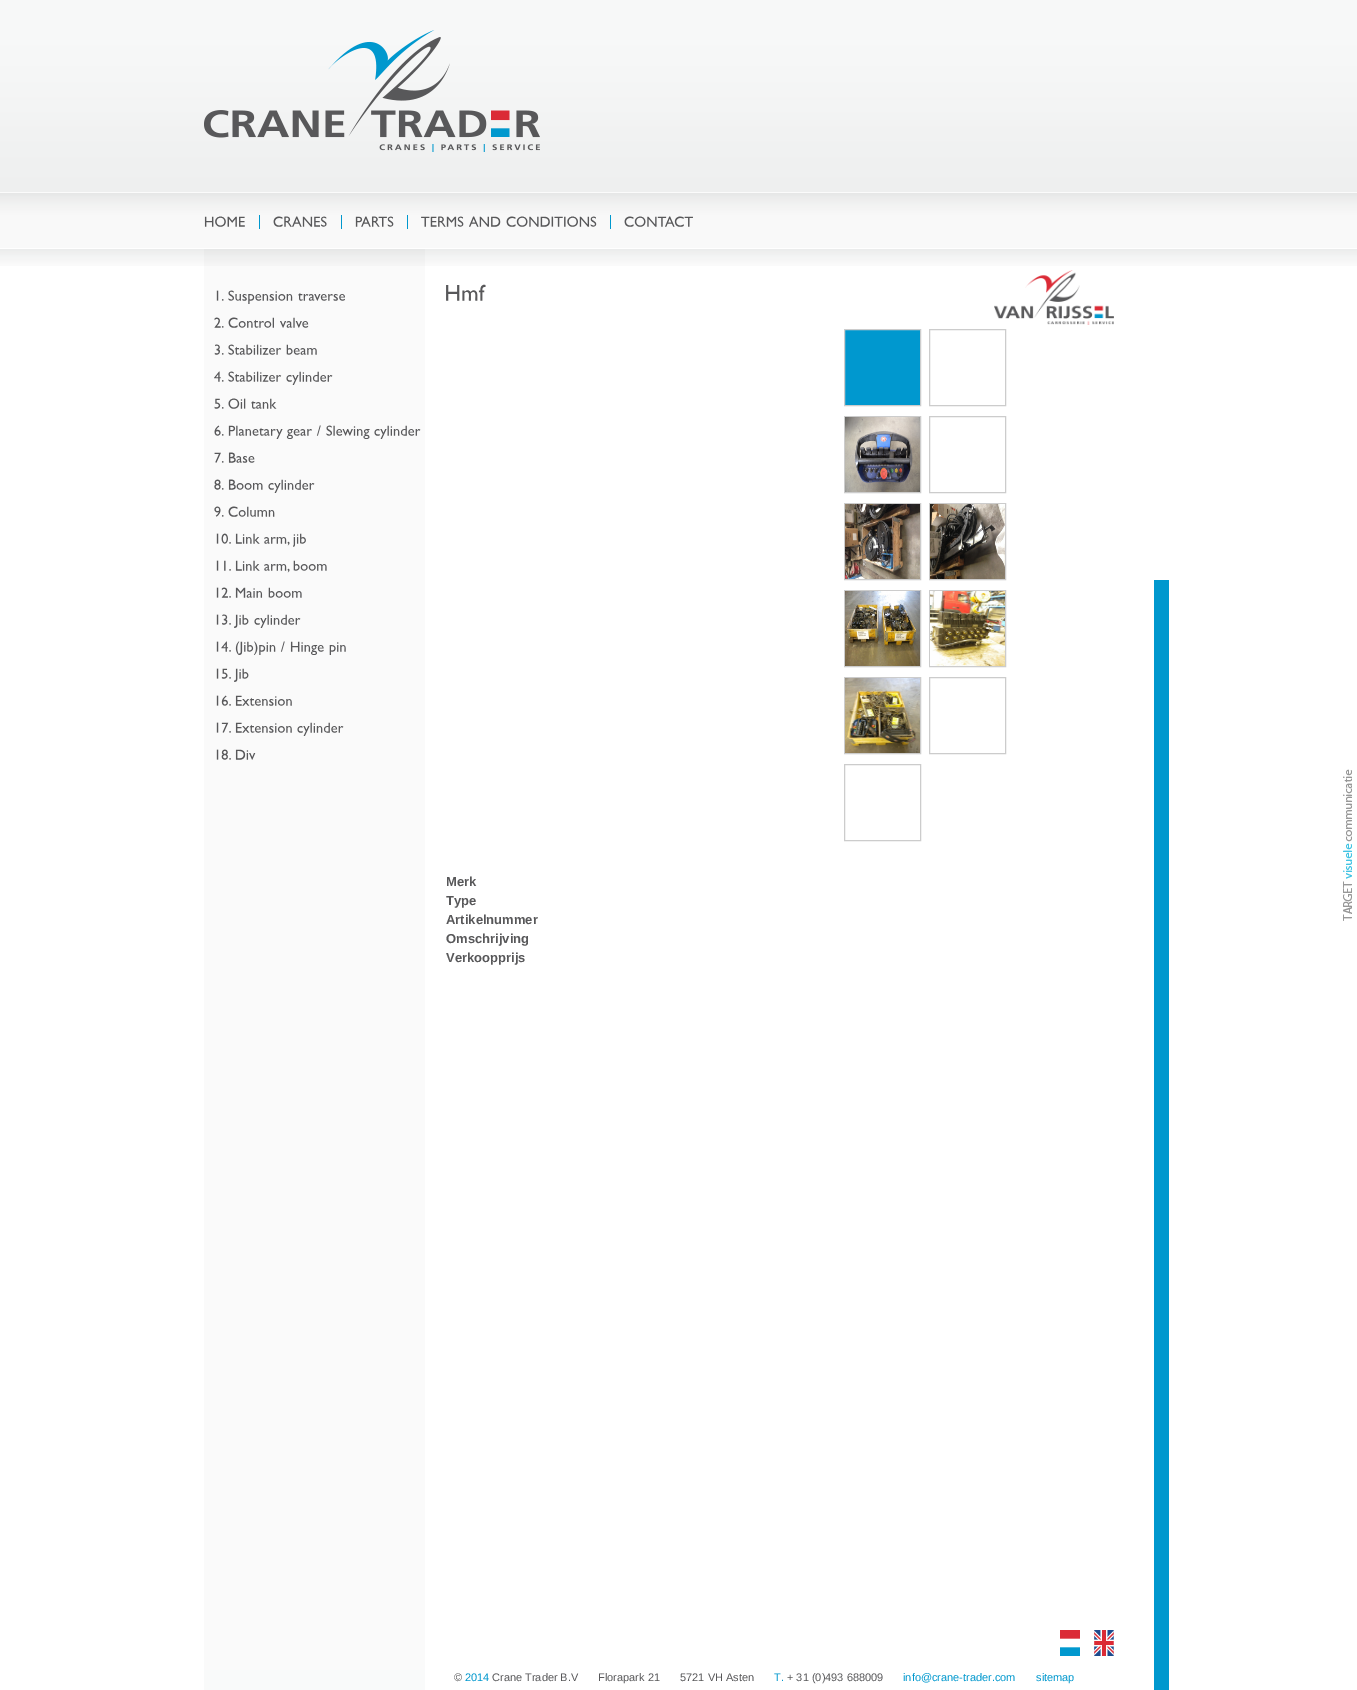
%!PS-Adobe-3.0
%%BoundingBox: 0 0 1357 1690
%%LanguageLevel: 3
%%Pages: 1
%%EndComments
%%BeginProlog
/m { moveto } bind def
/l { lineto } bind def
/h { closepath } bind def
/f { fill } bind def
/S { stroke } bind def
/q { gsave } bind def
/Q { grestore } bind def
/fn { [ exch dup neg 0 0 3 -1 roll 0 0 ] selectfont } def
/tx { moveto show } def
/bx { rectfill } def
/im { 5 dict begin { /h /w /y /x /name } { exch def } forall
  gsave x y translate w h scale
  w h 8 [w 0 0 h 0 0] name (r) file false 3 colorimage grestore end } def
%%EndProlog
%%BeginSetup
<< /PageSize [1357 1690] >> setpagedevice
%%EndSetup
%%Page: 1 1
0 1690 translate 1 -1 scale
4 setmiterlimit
1 setgray
0 0 1357 1690 bx
0.98 setgray
204 249 221 1421 bx
(image0.raw) 0 0 1357 266 im
(image1.raw) 1343 769 9 152 im
0 0.596 0.808 setrgbcolor
1154 580 15 1110 bx
(image2.raw) 204 30 336 122 im
259 215 1 14 bx
(image3.raw) 204 216 41 11 im
341 215 1 14 bx
(image4.raw) 273 216 54 11 im
407 215 1 14 bx
(image5.raw) 355 216 39 11 im
610 215 1 14 bx
(image6.raw) 421 216 43 11 im
(image7.raw) 469 216 32 11 im
(image8.raw) 506 216 91 11 im
(image9.raw) 624 216 69 11 im
(image10.raw) 216 290 8 11 im
(image11.raw) 228 290 65 14 im
(image12.raw) 298 292 47 9 im
(image13.raw) 214 317 10 11 im
(image14.raw) 228 317 46 11 im
(image15.raw) 280 317 29 11 im
(image16.raw) 214 344 10 11 im
(image17.raw) 228 344 54 11 im
(image18.raw) 286 344 31 11 im
(image19.raw) 214 371 10 11 im
(image17.raw) 228 371 54 11 im
(image20.raw) 286 371 47 14 im
(image21.raw) 214 398 10 11 im
(image22.raw) 228 398 18 11 im
(image23.raw) 251 398 26 11 im
(image24.raw) 214 425 10 11 im
(image25.raw) 228 425 55 14 im
(image26.raw) 286 429 26 10 im
(image27.raw) 316 425 5 11 im
(image28.raw) 326 425 44 14 im
(image20.raw) 374 425 47 14 im
(image29.raw) 214 452 10 11 im
(image30.raw) 228 452 27 11 im
(image31.raw) 214 479 10 11 im
(image32.raw) 228 479 35 11 im
(image20.raw) 268 479 47 14 im
(image33.raw) 214 506 10 11 im
(image34.raw) 228 506 47 11 im
(image35.raw) 216 533 15 11 im
(image36.raw) 235 533 25 11 im
(image37.raw) 264 537 26 9 im
(image38.raw) 293 533 13 14 im
(image39.raw) 216 560 15 11 im
(image36.raw) 235 560 25 11 im
(image37.raw) 264 564 26 9 im
(image40.raw) 293 560 34 11 im
(image41.raw) 216 587 15 11 im
(image42.raw) 235 587 28 11 im
(image40.raw) 268 587 34 11 im
(image43.raw) 216 614 15 11 im
(image44.raw) 234 614 15 14 im
(image20.raw) 254 614 47 14 im
(image45.raw) 216 641 15 11 im
(image46.raw) 235 641 41 14 im
(image27.raw) 280 641 5 11 im
(image47.raw) 290 641 34 14 im
(image48.raw) 329 642 17 13 im
(image49.raw) 216 668 15 11 im
(image44.raw) 234 668 15 14 im
(image50.raw) 216 695 15 11 im
(image51.raw) 235 695 57 11 im
(image52.raw) 216 722 15 11 im
(image51.raw) 235 722 57 11 im
(image20.raw) 297 722 47 14 im
(image53.raw) 216 749 15 11 im
(image54.raw) 235 749 21 11 im
(image55.raw) 994 270 120 55 im
(image56.raw) 446 284 40 17 im
0 0.596 0.812 setrgbcolor
844.5 329.5 m 920.5 329.5 l 920.5 405.5 l 844.5 405.5 l h q f Q
0.8 setgray
S
929.5 329.5 76 76 rectstroke
844.5 416.5 76 76 rectstroke
(image57.raw) 845 417 75 75 im
929.5 416.5 76 76 rectstroke
844.5 503.5 76 76 rectstroke
(image58.raw) 845 504 75 75 im
929.5 503.5 76 76 rectstroke
(image59.raw) 930 504 75 75 im
844.5 590.5 76 76 rectstroke
(image60.raw) 845 591 75 75 im
929.5 590.5 76 76 rectstroke
(image61.raw) 930 591 75 75 im
844.5 677.5 76 76 rectstroke
(image62.raw) 845 678 75 75 im
929.5 677.5 76 76 rectstroke
844.5 764.5 76 76 rectstroke
/LiberationSans-Bold 13 fn
0.345 0.345 0.353 setrgbcolor
(Merk) 446 886 tx
(Type) 446 905 tx
(Artikelnummer) 446 924 tx
(Omschrijving) 446 943 tx
(Verkoopprijs) 446 962 tx
0.976 0.98 0.98 setrgbcolor
204 1670 221 20 bx
(image63.raw) 1060 1630 20 26 im
(image64.raw) 1094 1630 20 26 im
/LiberationSans-Regular 11 fn
0.345 0.345 0.353 setrgbcolor
(©) 454 1681 tx
0 0.596 0.808 setrgbcolor
(2014) 465 1681 tx
0.345 0.345 0.353 setrgbcolor
(Crane Trader B.V) 492 1681 tx
(Florapark 21) 598 1681 tx
(5721 VH Asten) 680 1681 tx
0 0.596 0.808 setrgbcolor
(T.) 774 1681 tx
0.345 0.345 0.353 setrgbcolor
(+ 31 \(0\)493 688009) 787 1681 tx
0 0.596 0.808 setrgbcolor
(info@crane-trader.com) 903 1681 tx
(sitemap) 1036 1681 tx
showpage
%%EOF
